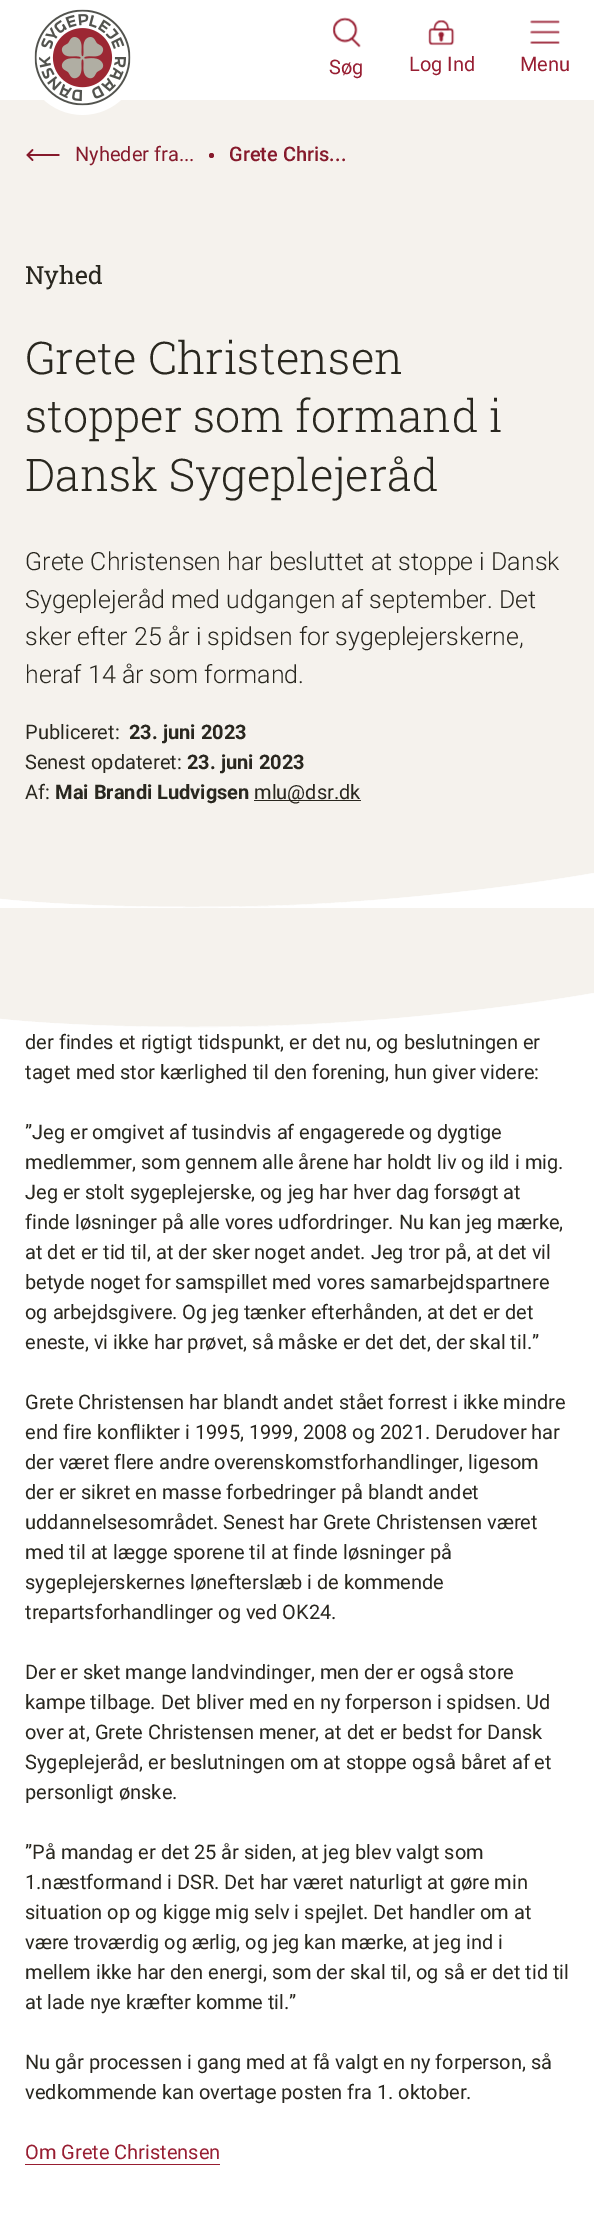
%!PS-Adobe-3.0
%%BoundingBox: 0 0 594 2217
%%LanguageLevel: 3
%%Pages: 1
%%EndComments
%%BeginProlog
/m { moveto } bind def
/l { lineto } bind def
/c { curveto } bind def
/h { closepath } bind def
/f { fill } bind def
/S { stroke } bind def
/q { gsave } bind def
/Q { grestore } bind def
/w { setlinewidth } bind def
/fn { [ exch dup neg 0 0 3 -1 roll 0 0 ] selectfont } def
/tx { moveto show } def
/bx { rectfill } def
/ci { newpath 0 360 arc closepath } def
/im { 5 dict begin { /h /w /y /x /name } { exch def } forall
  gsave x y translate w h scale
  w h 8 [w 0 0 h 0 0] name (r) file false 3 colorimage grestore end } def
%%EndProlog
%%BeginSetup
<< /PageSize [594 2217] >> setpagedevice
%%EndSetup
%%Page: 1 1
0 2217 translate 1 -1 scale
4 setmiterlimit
1 setgray
0 0 594 2217 bx
0.961 0.949 0.929 setrgbcolor
0 100 594 928 bx
(image0.raw) 34 9 97 106 im
(image1.raw) 332 17 29 31 im
/Roboto-Regular 20 fn
0.596 0.118 0.196 setrgbcolor
(Søg) 329 74 tx
(image2.raw) 428 20 27 26 im
(Log Ind) 409 71 tx
(image3.raw) 530 20 30 24 im
(Menu) 520 71 tx
(image4.raw) 26 149 34 12 im
0.525 0.102 0.173 setrgbcolor
(Nyheder fra...) 75 161 tx
211.5 155.5 2.5 ci f
/Roboto-Medium 20 fn
(Grete Chris...) 229 161 tx
/RobotoSlab-Regular 25 fn
0.161 0.153 0.122 setrgbcolor
(Nyhed) 25 284 tx
/RobotoSlab-Light 45 fn
(Grete Christensen) 25 374 tx
(stopper som formand i) 25 432 tx
(Dansk Sygeplejeråd) 25 491 tx
/Roboto-Light 25 fn
(Grete Christensen har besluttet at stoppe i Dansk) 25 570 tx
(Sygeplejeråd med udgangen af september. Det) 25 608 tx
(sker efter 25 år i spidsen for sygeplejerskerne,) 25 645 tx
(heraf 14 år som formand.) 25 683 tx
/Roboto-Regular 20 fn
(Publiceret:) 25 739 tx
/Roboto-Bold 20 fn
(23. juni 2023) 129 739 tx
/Roboto-Regular 20 fn
(Senest opdateret:) 25 769 tx
/Roboto-Bold 20 fn
(23. juni 2023) 187 769 tx
/Roboto-Regular 20 fn
(Af:) 25 799 tx
/Roboto-Bold 20 fn
(Mai Brandi Ludvigsen) 55 799 tx
254 800 107 1 bx
/Roboto-Regular 20 fn
(mlu@dsr.dk) 254 799 tx
1 setgray
242 1027 m 106 1029 18 1021 0 1019 c 0 1028 l 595 1028 l 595 993 l 534 1004 389 1024 242 1027 c h f
q
0 993 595 35 rectclip
0.4 w
242 1026.5 m 105.5 1029 18.5 1021.5 0 1019 c 0 1028 l 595 1028 l 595 993 l 533.5 1004 389 1024.5 242 1026.5 c h S
Q
242 907 m 106 909 18 901 0 899 c 0 908 l 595 908 l 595 873 l 534 884 389 904 242 907 c h f
q
0 873 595 35 rectclip
0.4 w
242 906.5 m 105.5 909 18.5 901.5 0 899 c 0 908 l 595 908 l 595 873 l 533.5 884 389 904.5 242 906.5 c h S
Q
0.161 0.153 0.122 setrgbcolor
(der findes et rigtigt tidspunkt, er det nu, og beslutningen er) 25 1049 tx
(taget med stor kærlighed til den forening, hun giver videre:) 25 1079 tx
(”Jeg er omgivet af tusindvis af engagerede og dygtige) 25 1139 tx
(medlemmer, som gennem alle årene har holdt liv og ild i mig.) 25 1169 tx
(Jeg er stolt sygeplejerske, og jeg har hver dag forsøgt at) 25 1199 tx
(finde løsninger på alle vores udfordringer. Nu kan jeg mærke,) 25 1229 tx
(at det er tid til, at der sker noget andet. Jeg tror på, at det vil) 25 1259 tx
(betyde noget for samspillet med vores samarbejdspartnere) 25 1289 tx
(og arbejdsgivere. Og jeg tænker efterhånden, at det er det) 25 1319 tx
(eneste, vi ikke har prøvet, så måske er det det, der skal til.”) 25 1349 tx
(Grete Christensen har blandt andet stået forrest i ikke mindre) 25 1409 tx
(end fire konflikter i 1995, 1999, 2008 og 2021. Derudover har) 25 1439 tx
(der været flere andre overenskomstforhandlinger, ligesom) 25 1469 tx
(der er sikret en masse forbedringer på blandt andet) 25 1499 tx
(uddannelsesområdet. Senest har Grete Christensen været) 25 1529 tx
(med til at lægge sporene til at finde løsninger på) 25 1559 tx
(sygeplejerskernes lønefterslæb i de kommende) 25 1589 tx
(trepartsforhandlinger og ved OK24.) 25 1619 tx
(Der er sket mange landvindinger, men der er også store) 25 1679 tx
(kampe tilbage. Det bliver med en ny forperson i spidsen. Ud) 25 1709 tx
(over at, Grete Christensen mener, at det er bedst for Dansk) 25 1739 tx
(Sygeplejeråd, er beslutningen om at stoppe også båret af et) 25 1769 tx
(personligt ønske.) 25 1799 tx
(”På mandag er det 25 år siden, at jeg blev valgt som) 25 1859 tx
(1.næstformand i DSR. Det har været naturligt at gøre min) 25 1889 tx
(situation op og kigge mig selv i spejlet. Det handler om at) 25 1919 tx
(være troværdig og ærlig, og jeg kan mærke, at jeg ind i) 25 1949 tx
(mellem ikke har den energi, som der skal til, og så er det tid til) 25 1979 tx
(at lade nye kræfter komme til.”) 25 2009 tx
(Nu går processen i gang med at få valgt en ny forperson, så) 25 2069 tx
(vedkommende kan overtage posten fra 1. oktober.) 25 2099 tx
0.596 0.118 0.196 setrgbcolor
(Om Grete Christensen) 25 2159 tx
25 2164 195 1 bx
showpage
%%EOF
